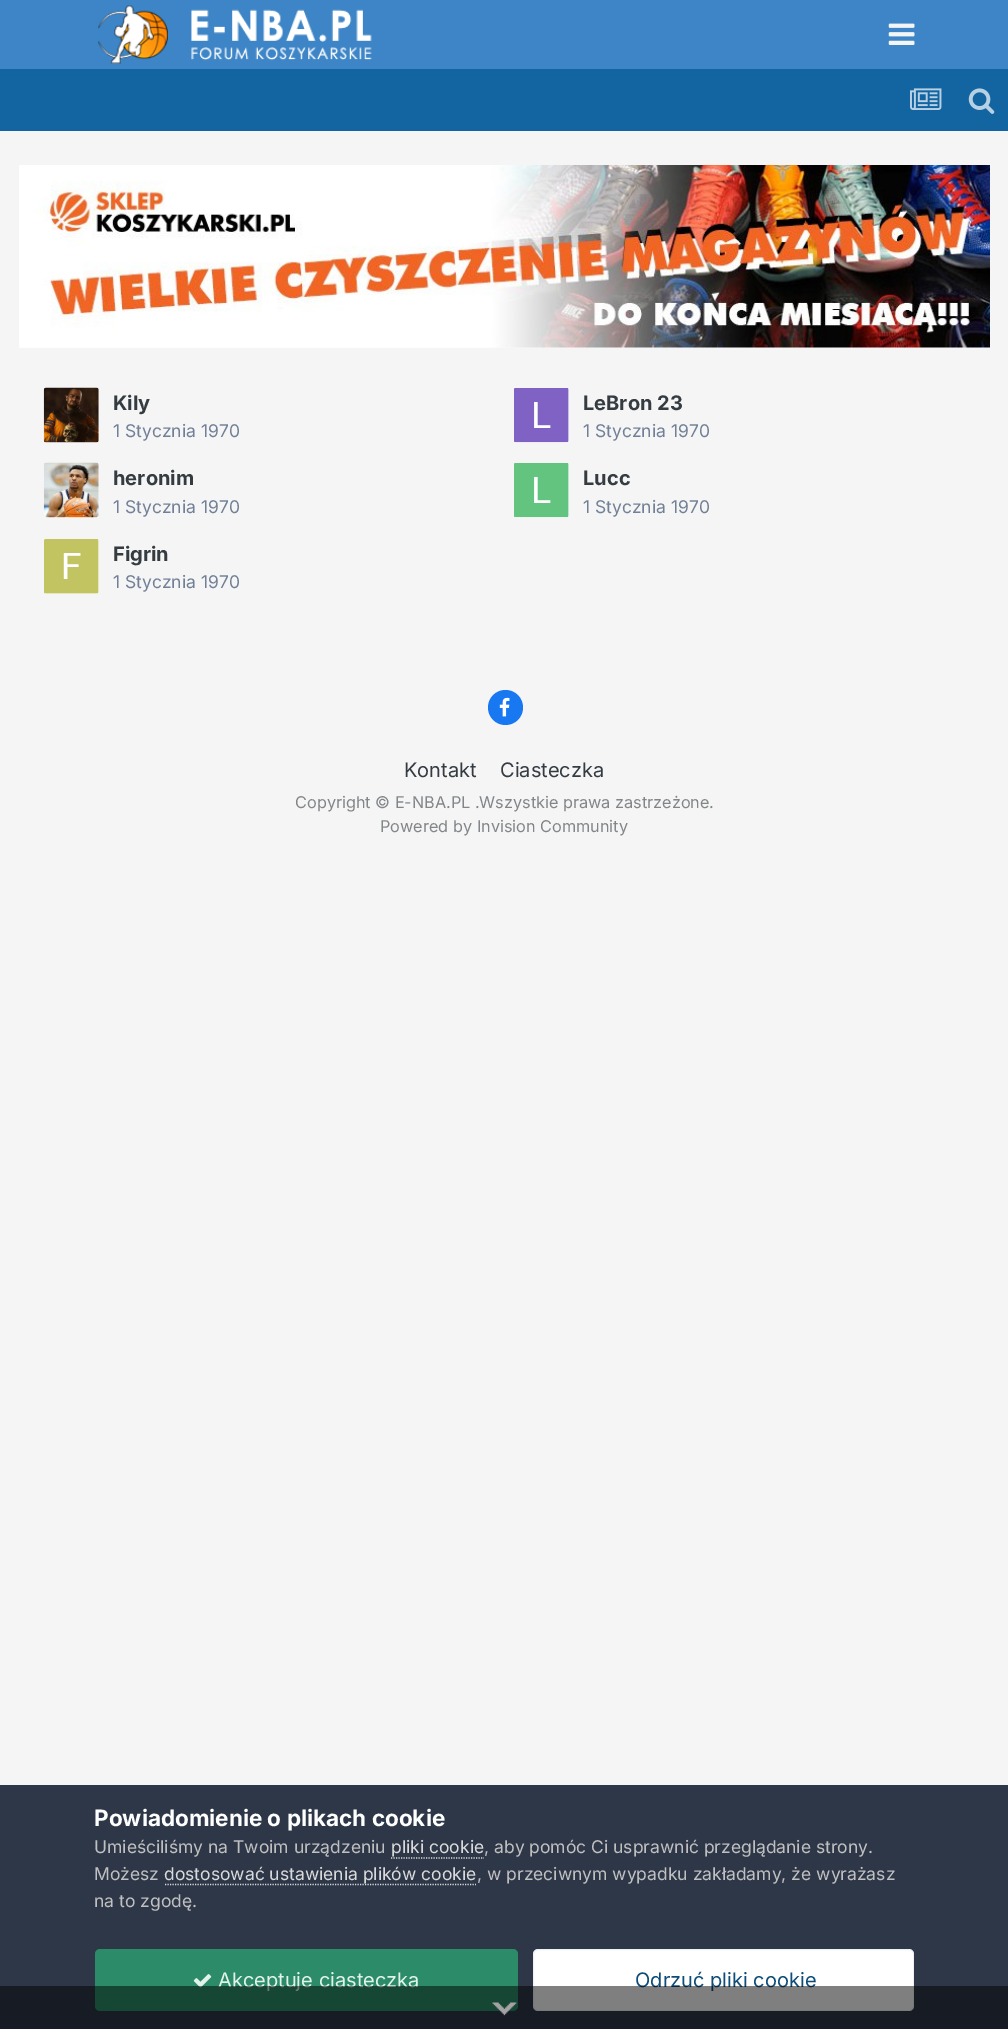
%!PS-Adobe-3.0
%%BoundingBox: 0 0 1008 2029
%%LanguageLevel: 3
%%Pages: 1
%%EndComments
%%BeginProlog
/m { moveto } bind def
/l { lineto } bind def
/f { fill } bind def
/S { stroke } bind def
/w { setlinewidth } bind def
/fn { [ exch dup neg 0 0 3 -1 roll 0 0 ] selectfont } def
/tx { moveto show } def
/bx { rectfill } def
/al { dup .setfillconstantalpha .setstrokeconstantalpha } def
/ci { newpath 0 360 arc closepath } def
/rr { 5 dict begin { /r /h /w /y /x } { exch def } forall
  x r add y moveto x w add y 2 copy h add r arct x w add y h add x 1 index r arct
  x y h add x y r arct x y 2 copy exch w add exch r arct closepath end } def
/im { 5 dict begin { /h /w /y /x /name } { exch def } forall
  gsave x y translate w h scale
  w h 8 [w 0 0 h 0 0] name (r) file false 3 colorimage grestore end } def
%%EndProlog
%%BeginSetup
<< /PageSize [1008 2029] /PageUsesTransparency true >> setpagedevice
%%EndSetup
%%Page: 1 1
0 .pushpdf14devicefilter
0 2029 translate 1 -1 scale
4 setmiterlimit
0.961 setgray
0 0 1008 2029 bx
0.239 0.522 0.776 setrgbcolor
0 0 1008 69 bx
(image0.raw) 98 5 274 59 im
(image1.raw) 888 23 27 22 im
0.071 0.396 0.631 setrgbcolor
0 69 1008 62 bx
(image2.raw) 910 88 32 22 im
(image3.raw) 968 88 27 26 im
0.969 0.98 0.988 setrgbcolor
19 347 971 1 bx
(image4.raw) 19 165 971 183 im
1 setgray
44 388 55 55 2.5 rr f
(image5.raw) 43 387 56 56 im
/Inter-Bold 20 fn
0.208 0.235 0.255 setrgbcolor
(Kily) 113 410 tx
/Inter-Regular 17.5 fn
0.443 0.502 0.588 setrgbcolor
(1 Stycznia 1970) 113 437 tx
1 setgray
514 388 55 55 2.5 rr f
(image6.raw) 514 388 55 55 im
/Inter-Bold 20 fn
0.208 0.235 0.255 setrgbcolor
(LeBron 23) 583 410 tx
/Inter-Regular 17.5 fn
0.443 0.502 0.588 setrgbcolor
(1 Stycznia 1970) 583 437 tx
1 setgray
44 463 55 55 2.5 rr f
(image7.raw) 43 462 56 56 im
/Inter-Bold 20 fn
0.208 0.235 0.255 setrgbcolor
(heronim) 113 485 tx
/Inter-Regular 17.5 fn
0.443 0.502 0.588 setrgbcolor
(1 Stycznia 1970) 113 513 tx
1 setgray
514 463 55 55 2.5 rr f
(image8.raw) 514 463 55 55 im
/Inter-Bold 20 fn
0.208 0.235 0.255 setrgbcolor
(Lucc) 583 485 tx
/Inter-Regular 17.5 fn
0.443 0.502 0.588 setrgbcolor
(1 Stycznia 1970) 583 513 tx
1 setgray
44 539 55 55 2.5 rr f
(image9.raw) 44 539 55 55 im
/Inter-Bold 20 fn
0.208 0.235 0.255 setrgbcolor
(Figrin) 113 561 tx
/Inter-Regular 17.5 fn
0.443 0.502 0.588 setrgbcolor
(1 Stycznia 1970) 113 588 tx
0.09 0.471 0.949 setrgbcolor
505.5 707.5 17.5 ci f
(image10.raw) 499 697 11 20 im
/Inter-Regular 20 fn
0.208 0.235 0.255 setrgbcolor
(Kontakt) 404 777 tx
(Ciasteczka) 500 777 tx
/Inter-Regular 16.25 fn
0.51 0.525 0.537 setrgbcolor
(Copyright © E-NBA.PL .Wszystkie prawa zastrzeżone.) 295 808 tx
(Powered by Invision Community) 380 832 tx
0.176 0.216 0.282 setrgbcolor
0 1785 1008 244 bx
/Inter-Bold 22.5 fn
1 setgray
(Powiadomienie o plikach cookie) 94 1826 tx
/Inter-Regular 17.5 fn
0.753 setgray
(Umieściliśmy na Twoim urządzeniu) 94 1853 tx
0.855 setgray
(pliki cookie) 391 1853 tx
1.2 w
[1.25 1.25] 0 setdash
391 1858 m 484 1858 l S
0.753 setgray
(, aby pomóc Ci usprawnić przeglądanie strony.) 484 1853 tx
(Możesz) 94 1880 tx
0.855 setgray
165 1884.5 m 476 1884.5 l S
(dostosować ustawienia plików cookie) 164 1880 tx
0.753 setgray
(, w przeciwnym wypadku zakładamy, że wyrażasz) 477 1880 tx
(na to zgodę.) 94 1907 tx
0.173 0.549 0.412 setrgbcolor
95 1949 423 62 5 rr f
(image11.raw) 193 1974 19 14 im
/Inter-Regular 20 fn
0.89 0.953 0.925 setrgbcolor
(Akceptuje ciasteczka) 218 1987 tx
1 setgray
533 1949 381 62 5 rr f
0.07 al
0.055 0.298 0.475 setrgbcolor
1 w
[] 0 setdash
533.5 1949.5 380 61 4.5 rr S
1 al
(Odrzuć pliki cookie) 635 1987 tx
0.5 al
0 setgray
0 1986 1008 43 bx
1 al
(image12.raw) 492 2002 25 14 im
.poppdf14devicefilter showpage
%%EOF
